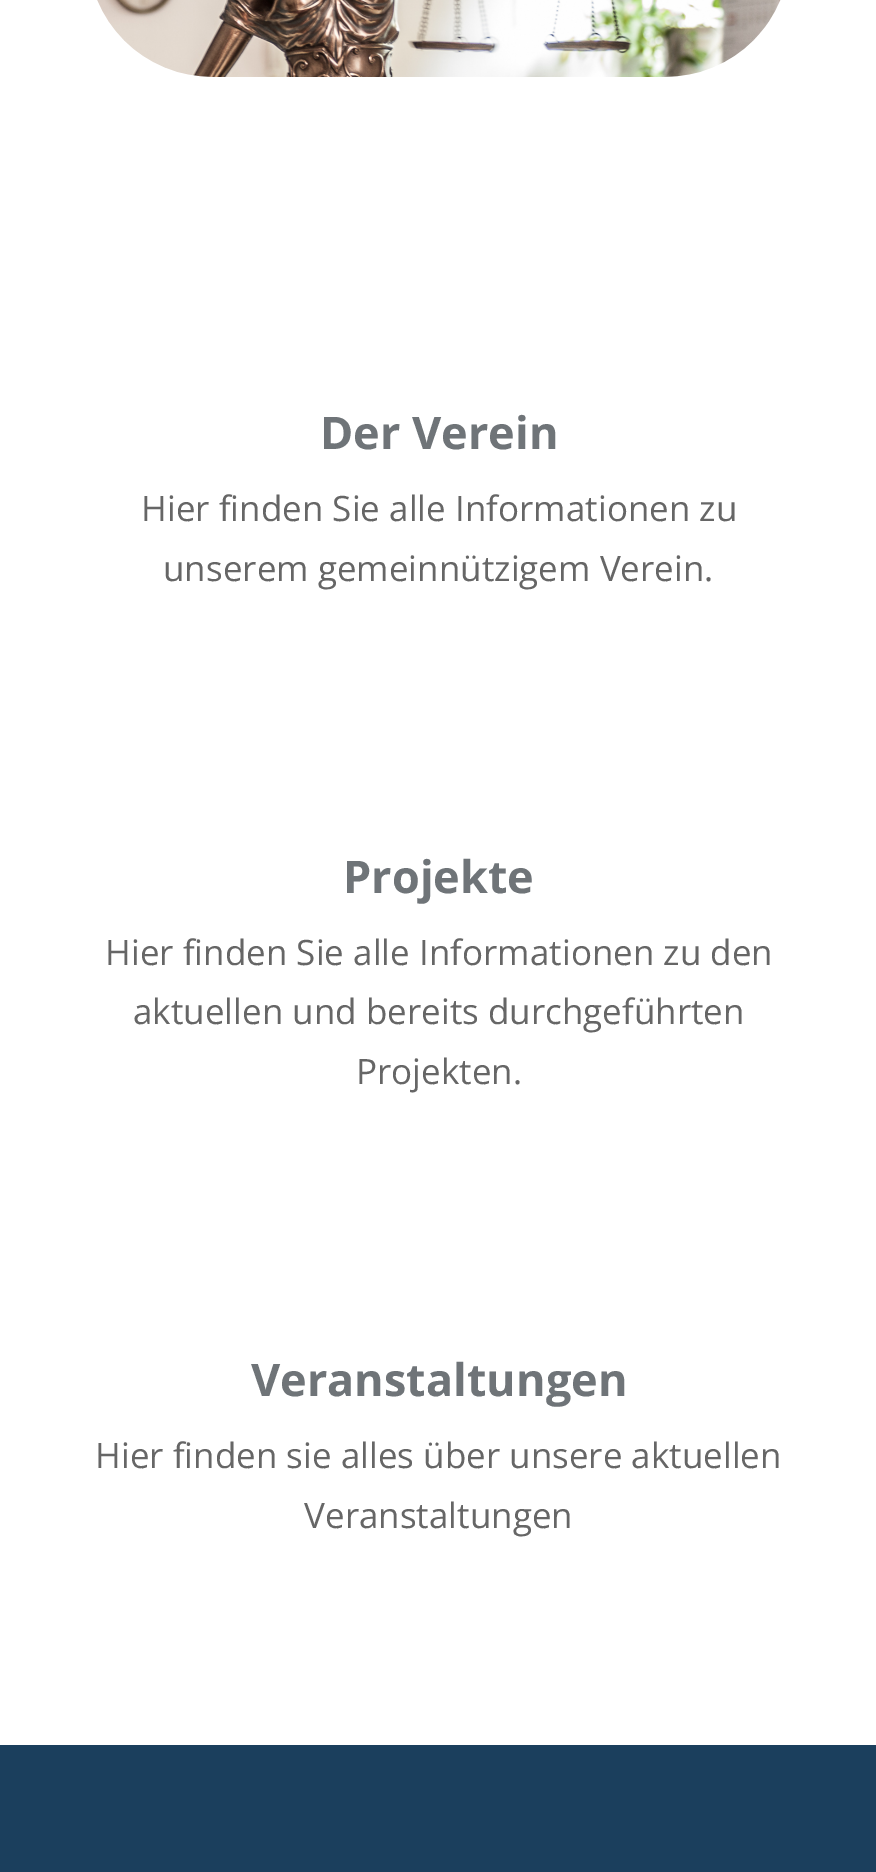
%!PS-Adobe-3.0
%%BoundingBox: 0 0 876 1872
%%LanguageLevel: 3
%%Pages: 1
%%EndComments
%%BeginProlog
/fn { [ exch dup neg 0 0 3 -1 roll 0 0 ] selectfont } def
/tx { moveto show } def
/bx { rectfill } def
/im { 5 dict begin { /h /w /y /x /name } { exch def } forall
  gsave x y translate w h scale
  w h 8 [w 0 0 h 0 0] name (r) file false 3 colorimage grestore end } def
%%EndProlog
%%BeginSetup
<< /PageSize [876 1872] >> setpagedevice
%%EndSetup
%%Page: 1 1
0 1872 translate 1 -1 scale
4 setmiterlimit
1 setgray
0 0 876 1872 bx
(image0.raw) 97 0 684 77 im
/OpenSans-Bold 45 fn
0.435 0.455 0.471 setrgbcolor
(Der Verein) 320 449 tx
/OpenSans-Regular 35 fn
0.4 setgray
(Hier finden Sie alle Informationen zu) 141 521 tx
(unserem gemeinnützigem Verein.) 163 581 tx
/OpenSans-Bold 45 fn
0.435 0.455 0.471 setrgbcolor
(Projekte) 343 893 tx
/OpenSans-Regular 35 fn
0.4 setgray
(Hier finden Sie alle Informationen zu den) 105 965 tx
(aktuellen und bereits durchgeführten) 133 1024 tx
(Projekten.) 356 1084 tx
/OpenSans-Bold 45 fn
0.435 0.455 0.471 setrgbcolor
(Veranstaltungen) 251 1396 tx
/OpenSans-Regular 35 fn
0.4 setgray
(Hier finden sie alles über unsere aktuellen) 95 1468 tx
(Veranstaltungen) 304 1528 tx
0.106 0.247 0.365 setrgbcolor
0 1745 876 127 bx
showpage
%%EOF
